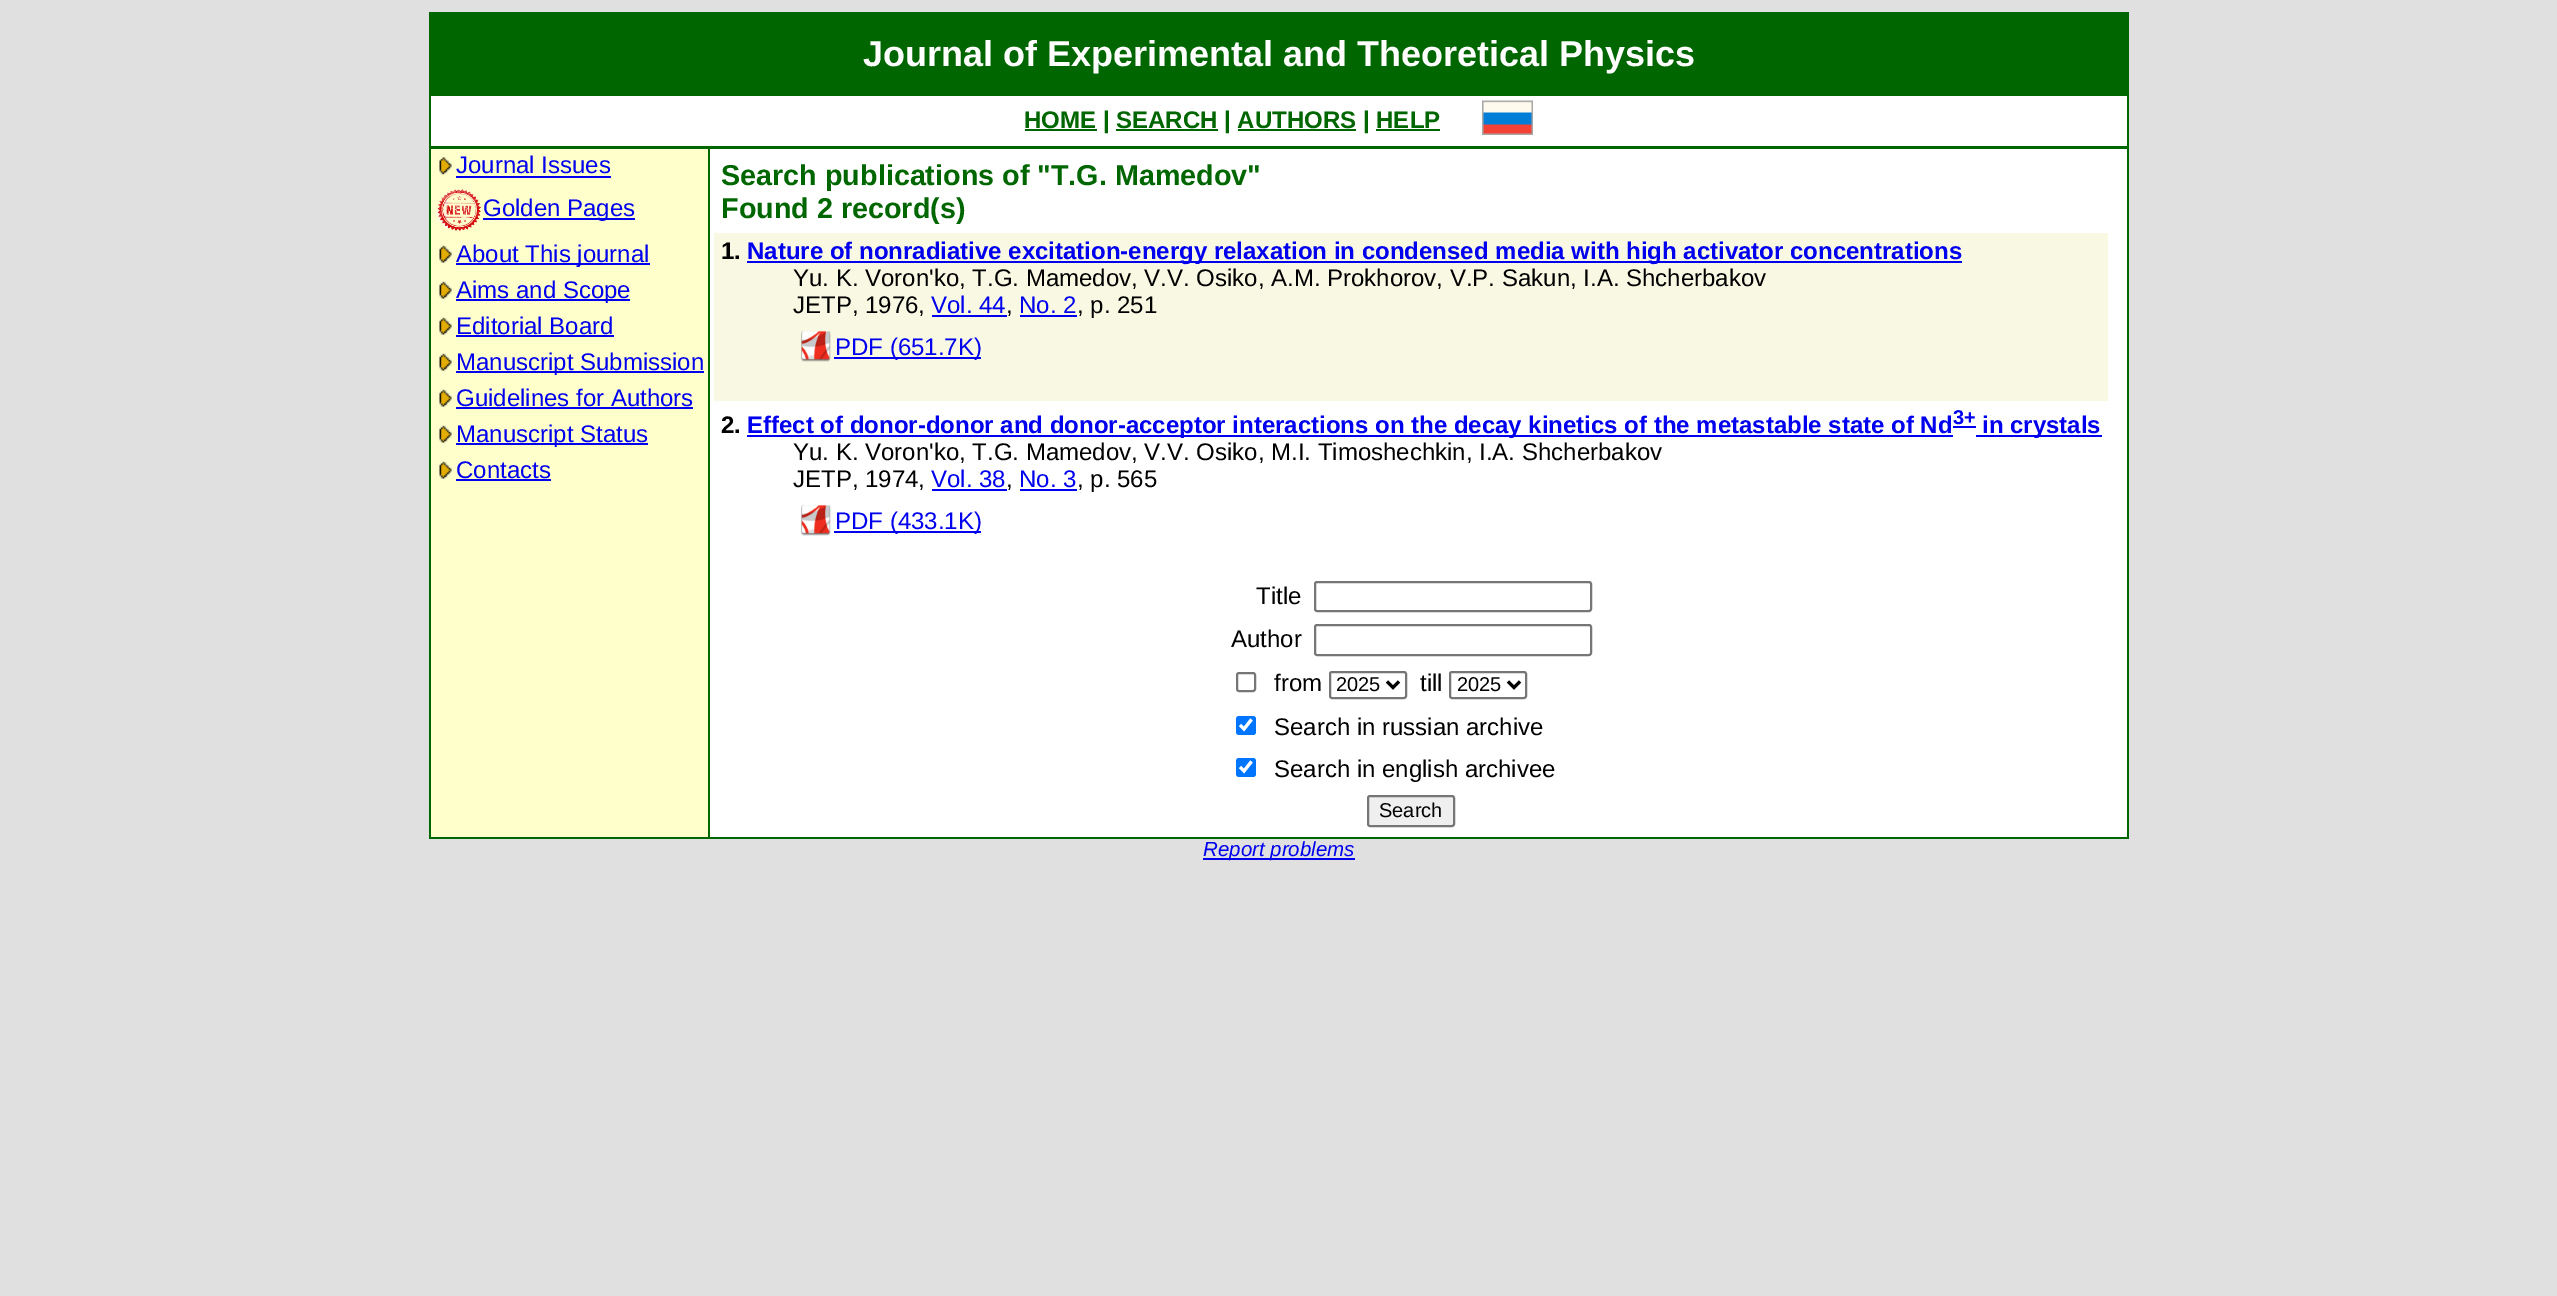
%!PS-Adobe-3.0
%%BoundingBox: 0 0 2557 1296
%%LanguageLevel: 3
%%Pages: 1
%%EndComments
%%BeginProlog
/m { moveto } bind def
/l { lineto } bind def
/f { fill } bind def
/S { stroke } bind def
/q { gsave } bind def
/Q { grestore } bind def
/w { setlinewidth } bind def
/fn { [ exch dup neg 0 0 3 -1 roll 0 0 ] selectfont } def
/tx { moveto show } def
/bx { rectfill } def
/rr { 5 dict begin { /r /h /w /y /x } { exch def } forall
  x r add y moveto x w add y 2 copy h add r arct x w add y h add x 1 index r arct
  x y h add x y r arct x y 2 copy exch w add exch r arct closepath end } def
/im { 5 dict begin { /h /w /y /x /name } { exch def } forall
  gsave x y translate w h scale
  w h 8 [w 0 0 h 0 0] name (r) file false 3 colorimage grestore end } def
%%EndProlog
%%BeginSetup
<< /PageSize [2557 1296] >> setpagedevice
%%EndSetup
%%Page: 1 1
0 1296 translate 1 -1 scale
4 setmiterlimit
0.878 setgray
0 0 2557 1296 bx
0 0.4 0 setrgbcolor
429 12 1700 827 bx
1 setgray
431 96 1696 741 bx
/LiberationSans-Bold 36 fn
(Journal of Experimental and Theoretical Physics) 863 66 tx
0 0.4 0 setrgbcolor
1025 129 72 2 bx
/LiberationSans-Bold 24 fn
(HOME | SEARCH | AUTHORS | HELP) 1024 128 tx
1116 129 102 2 bx
1238 129 118 2 bx
1376 129 64 2 bx
(image0.raw) 1482 100 51 35 im
431 146 1696 3 bx
1 1 0.8 setrgbcolor
431 149 277 688 bx
(image1.raw) 438 157 14 18 im
/LiberationSans-Regular 24 fn
0 0 0.933 setrgbcolor
(Journal Issues) 456 173 tx
456 176 155 2 bx
(image2.raw) 436 189 45 42 im
483 218 152 2 bx
(Golden Pages) 483 216 tx
(image3.raw) 438 245 14 18 im
456 263 194 2 bx
(About This journal) 456 262 tx
(image3.raw) 438 281 14 18 im
456 299 174 2 bx
(Aims and Scope) 456 298 tx
(image3.raw) 438 317 14 18 im
(Editorial Board) 456 334 tx
456 335 158 2 bx
(image3.raw) 438 353 14 18 im
456 371 248 2 bx
(Manuscript Submission) 456 370 tx
(image3.raw) 438 389 14 18 im
(Guidelines for Authors) 456 406 tx
456 407 237 2 bx
(image3.raw) 438 425 14 18 im
456 443 192 2 bx
(Manuscript Status) 456 442 tx
(image3.raw) 438 461 14 18 im
(Contacts) 456 478 tx
456 479 95 2 bx
0 0.4 0 setrgbcolor
708 149 2 688 bx
/LiberationSans-Bold 28.75 fn
(Search publications of "T.G. Mamedov") 721 185 tx
(Found 2 record\(s\)) 721 218 tx
0.973 0.973 0.89 setrgbcolor
714 233 1394 168 bx
/LiberationSans-Bold 24 fn
0 setgray
(1.) 721 259 tx
0 0 0.933 setrgbcolor
747 261 1215 2 bx
(Nature of nonradiative excitation-energy relaxation in condensed media with high activator concentrations) 747 259 tx
/LiberationSans-Regular 24 fn
0 setgray
(Yu. K. Voron'ko, T.G. Mamedov, V.V. Osiko, A.M. Prokhorov, V.P. Sakun, I.A. Shcherbakov) 793 286 tx
(JETP, 1976,) 793 313 tx
0 0 0.933 setrgbcolor
(Vol. 44) 931 313 tx
932 315 75 2 bx
0 setgray
(,) 1006 313 tx
0 0 0.933 setrgbcolor
(No. 2) 1019 313 tx
1020 315 57 2 bx
0 setgray
(, p. 251) 1077 313 tx
(image4.raw) 801 330 30 32 im
0 0 0.933 setrgbcolor
834 357 147 2 bx
(PDF \(651.7K\)) 835 355 tx
/LiberationSans-Bold 24 fn
0 setgray
(2.) 721 433 tx
0 0 0.933 setrgbcolor
747 435 1206 2 bx
(Effect of donor-donor and donor-acceptor interactions on the decay kinetics of the metastable state of Nd) 747 433 tx
1953 426 23 2 bx
/LiberationSans-Bold 20 fn
(3+) 1953 424 tx
1976 435 126 2 bx
/LiberationSans-Bold 24 fn
(in crystals) 1982 433 tx
/LiberationSans-Regular 24 fn
0 setgray
(Yu. K. Voron'ko, T.G. Mamedov, V.V. Osiko, M.I. Timoshechkin, I.A. Shcherbakov) 793 460 tx
(JETP, 1974,) 793 487 tx
0 0 0.933 setrgbcolor
(Vol. 38) 931 487 tx
932 489 75 2 bx
0 setgray
(,) 1006 487 tx
0 0 0.933 setrgbcolor
(No. 3) 1019 487 tx
1020 489 57 2 bx
0 setgray
(, p. 565) 1077 487 tx
(image5.raw) 801 504 30 32 im
0 0 0.933 setrgbcolor
834 531 147 2 bx
(PDF \(433.1K\)) 835 529 tx
0 setgray
(Title) 1256 604 tx
0.463 setgray
2 w
1315 582 276 29 2 rr S
0 setgray
(Author) 1231 647 tx
0.463 setgray
1315 625 276 30 2 rr S
1237 673 18 18 2 rr S
0 setgray
(from) 1274 691 tx
0.463 setgray
1330 672 76 26 2 rr S
0 setgray
3 w
1387 681.5 m 1393 687.5 l 1399 681.5 l S
/LiberationSans-Regular 20 fn
(2025) 1336 691 tx
/LiberationSans-Regular 24 fn
(till) 1420 691 tx
0.463 setgray
2 w
1450 672 76 26 2 rr S
0 setgray
3 w
1508 681.5 m 1514 687.5 l 1520 681.5 l S
/LiberationSans-Regular 20 fn
(2025) 1457 691 tx
0 0.459 1 setrgbcolor
1236 716 20 19 3 rr f
1 setgray
3.1 w
1240 725 m 1244 729 l 1251.5 719.5 l S
/LiberationSans-Regular 24 fn
0 setgray
(Search in russian archive) 1274 735 tx
0 0.459 1 setrgbcolor
1236 758 20 19 3 rr f
1 setgray
1240 767 m 1244 771 l 1251.5 761.5 l S
0 setgray
(Search in english archiveе) 1274 777 tx
0.937 setgray
1368 796 86 30 2 rr q f Q
0.463 setgray
2 w
S
/LiberationSans-Regular 20 fn
0 setgray
(Search) 1379 817 tx
0 0 0.933 setrgbcolor
1203 858 152 2 bx
/LiberationSans-Italic 20.5 fn
(Report problems) 1203 856 tx
showpage
%%EOF
